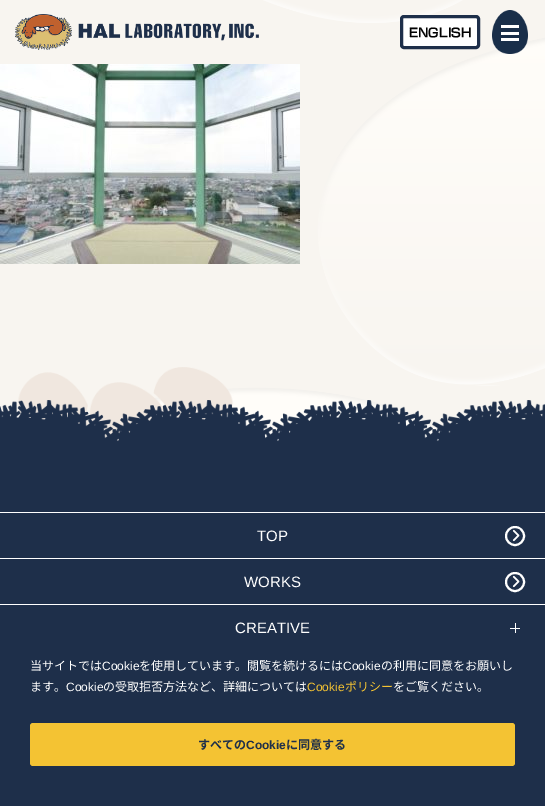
%!PS-Adobe-3.0
%%BoundingBox: 0 0 545 806
%%LanguageLevel: 3
%%Pages: 1
%%EndComments
%%BeginProlog
/f { fill } bind def
/S { stroke } bind def
/q { gsave } bind def
/Q { grestore } bind def
/w { setlinewidth } bind def
/fn { [ exch dup neg 0 0 3 -1 roll 0 0 ] selectfont } def
/tx { moveto show } def
/bx { rectfill } def
/ci { newpath 0 360 arc closepath } def
/rr { 5 dict begin { /r /h /w /y /x } { exch def } forall
  x r add y moveto x w add y 2 copy h add r arct x w add y h add x 1 index r arct
  x y h add x y r arct x y 2 copy exch w add exch r arct closepath end } def
/im { 5 dict begin { /h /w /y /x /name } { exch def } forall
  gsave x y translate w h scale
  w h 8 [w 0 0 h 0 0] name (r) file false 3 colorimage grestore end } def
%%EndProlog
%%BeginSetup
<< /PageSize [545 806] >> setpagedevice
%%EndSetup
%%Page: 1 1
0 806 translate 1 -1 scale
4 setmiterlimit
1 setgray
0 0 545 806 bx
(image0.raw) 0 0 545 442 im
(image1.raw) 15 14 244 36 im
401.5 16.5 77 31 2.5 rr q f Q
0.118 0.184 0.29 setrgbcolor
3 w
S
/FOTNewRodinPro-Bold 12 fn
0.004 setgray
(ENGLISH) 409 37 tx
(image2.raw) 492 10 36 44 im
1 setgray
501 25 18 3 bx
501 32 18 3 bx
501 38 18 3 bx
(image3.raw) 0 64 300 200 im
(image4.raw) 0 367 545 75 im
0.118 0.184 0.29 setrgbcolor
0 442 545 364 bx
1 setgray
0 512 545 1 bx
0 558 545 1 bx
/LiberationSans-Regular 15 fn
(TOP) 257 541 tx
2 w
515 536 9 ci S
(image5.raw) 512 529 8 13 im
0 604 545 1 bx
(WORKS) 244 587 tx
515 582 9 ci S
(image5.raw) 512 575 8 13 im
(CREATIVE) 235 633 tx
515 623 1 10 bx
510 628 10 1 bx
/NotoSansJP-Regular 12 fn
(当サイトでは) 30 670 tx
/LiberationSans-Regular 12 fn
(Cookie) 102 670 tx
/NotoSansJP-Regular 12 fn
(を使用しています。閲覧を続けるには) 139 670 tx
/LiberationSans-Regular 12 fn
(Cookie) 343 670 tx
/NotoSansJP-Regular 12 fn
(の利用に同意をお願いし) 381 670 tx
(ます。) 30 691 tx
/LiberationSans-Regular 12 fn
(Cookie) 66 691 tx
/NotoSansJP-Regular 12 fn
(の受取拒否方法など、詳細については) 103 691 tx
/LiberationSans-Regular 12 fn
0.957 0.765 0.2 setrgbcolor
(Cookie) 307 691 tx
/NotoSansJP-Regular 12 fn
(ポリシー) 345 691 tx
1 setgray
(をご覧ください。) 393 691 tx
0.957 0.765 0.2 setrgbcolor
30 723 485 43 3 rr f
/NotoSansJP-Bold 12 fn
0.118 0.184 0.29 setrgbcolor
(すべての) 198 749 tx
/LiberationSans-Bold 12 fn
(Cookie) 246 749 tx
/NotoSansJP-Bold 12 fn
(に同意する) 286 749 tx
showpage
%%EOF
